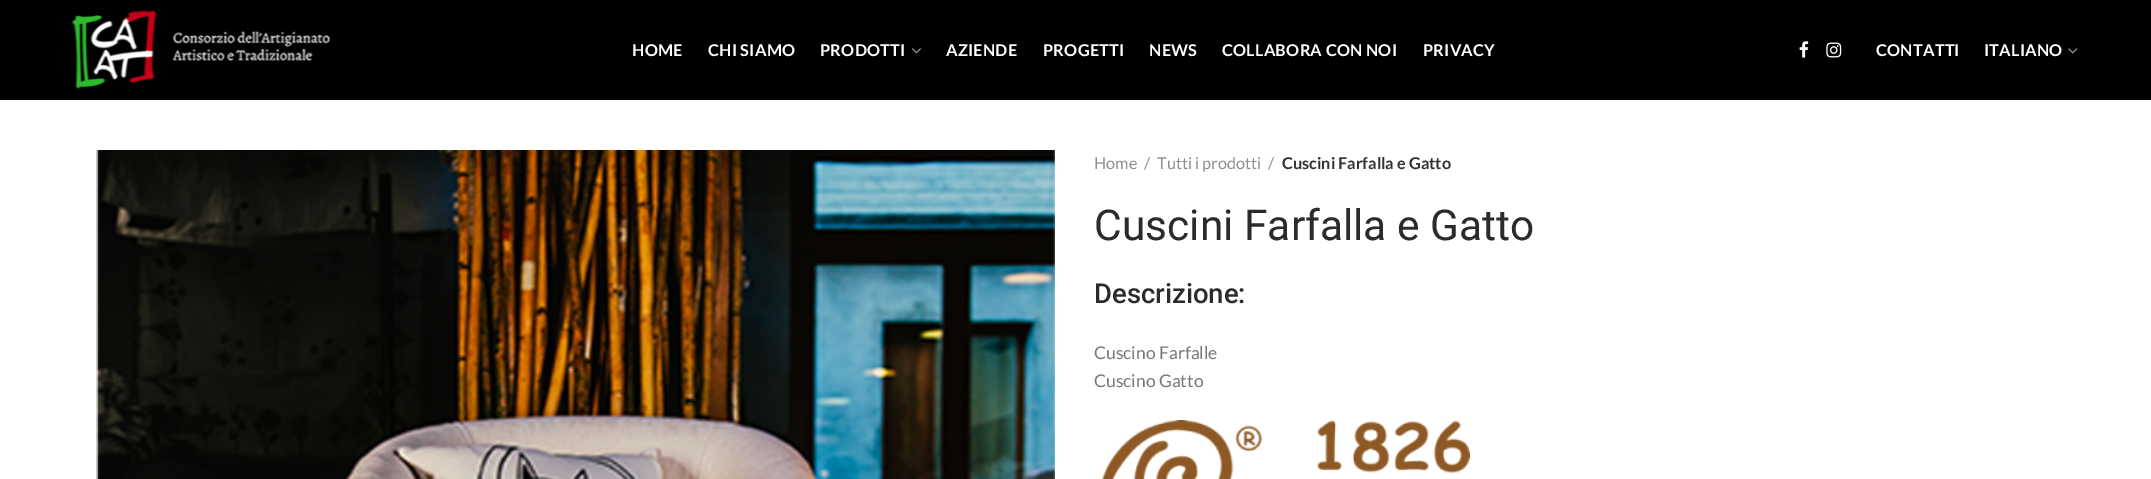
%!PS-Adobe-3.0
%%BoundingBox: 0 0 2151 479
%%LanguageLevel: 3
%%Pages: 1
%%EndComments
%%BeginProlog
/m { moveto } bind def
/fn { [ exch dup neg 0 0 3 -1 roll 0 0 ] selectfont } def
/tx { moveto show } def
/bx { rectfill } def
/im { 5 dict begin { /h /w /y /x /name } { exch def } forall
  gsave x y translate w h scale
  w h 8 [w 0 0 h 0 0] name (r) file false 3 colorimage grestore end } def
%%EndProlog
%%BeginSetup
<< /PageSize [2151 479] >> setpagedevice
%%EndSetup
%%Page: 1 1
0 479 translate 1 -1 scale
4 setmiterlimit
1 setgray
0 0 2151 479 bx
0 setgray
0 0 2151 100 bx
(image0.raw) 72 10 258 79 im
/Lato-Bold 16.25 fn
1 setgray
632 56 m 0.25 0 (HOME) ashow
708 56 m 0.25 0 (CHI SIAMO) ashow
820 56 m 0.25 0 (PRODOTTI) ashow
(image1.raw) 912 48 9 6 im
946 56 m 0.25 0 (AZIENDE) ashow
1043 56 m 0.25 0 (PROGETTI) ashow
1149 56 m 0.25 0 (NEWS) ashow
1222 56 m 0.25 0 (COLLABORA CON NOI) ashow
1423 56 m 0.25 0 (PRIVACY) ashow
(image2.raw) 1799 41 10 17 im
(image3.raw) 1826 42 16 16 im
1876 56 m 0.25 0 (CONTATTI) ashow
1984 56 m 0.25 0 (ITALIANO) ashow
(image4.raw) 2068 48 10 6 im
(image5.raw) 96 150 959 329 im
/Lato-Regular 16.25 fn
0.557 setgray
(Home) 1094 169 tx
(/) 1144 169 tx
(Tutti i prodotti) 1157 169 tx
(/) 1268 169 tx
/Lato-Bold 16.25 fn
0.2 setgray
(Cuscini Farfalla e Gatto) 1282 169 tx
/Roboto-Regular 42.5 fn
0.176 0.165 0.165 setrgbcolor
(Cuscini Farfalla e Gatto) 1094 240 tx
/Roboto-Medium 27.5 fn
(Descrizione:) 1094 303 tx
/Lato-Regular 17.5 fn
0.467 setgray
(Cuscino Farfalle) 1094 359 tx
(Cuscino Gatto) 1094 387 tx
(image6.raw) 1102 420 368 59 im
showpage
%%EOF
